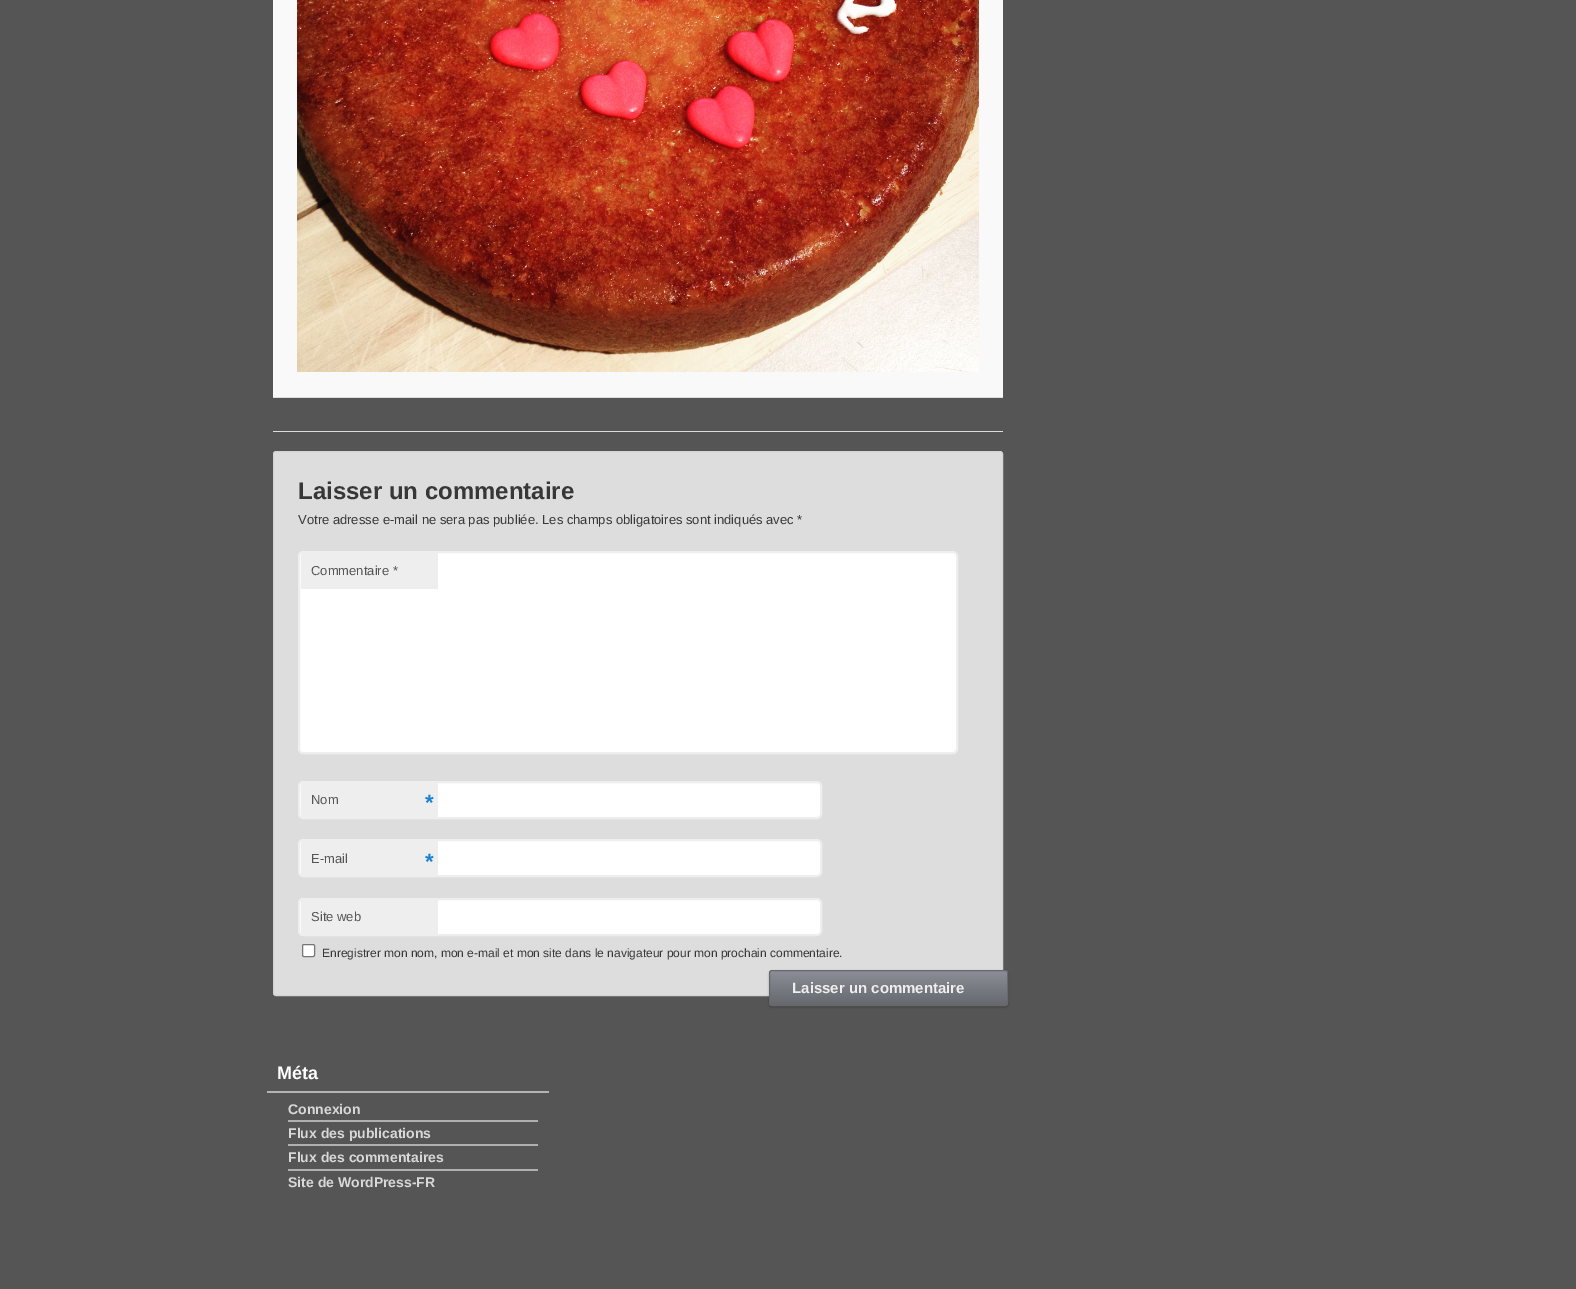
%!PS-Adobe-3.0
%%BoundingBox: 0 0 1576 1289
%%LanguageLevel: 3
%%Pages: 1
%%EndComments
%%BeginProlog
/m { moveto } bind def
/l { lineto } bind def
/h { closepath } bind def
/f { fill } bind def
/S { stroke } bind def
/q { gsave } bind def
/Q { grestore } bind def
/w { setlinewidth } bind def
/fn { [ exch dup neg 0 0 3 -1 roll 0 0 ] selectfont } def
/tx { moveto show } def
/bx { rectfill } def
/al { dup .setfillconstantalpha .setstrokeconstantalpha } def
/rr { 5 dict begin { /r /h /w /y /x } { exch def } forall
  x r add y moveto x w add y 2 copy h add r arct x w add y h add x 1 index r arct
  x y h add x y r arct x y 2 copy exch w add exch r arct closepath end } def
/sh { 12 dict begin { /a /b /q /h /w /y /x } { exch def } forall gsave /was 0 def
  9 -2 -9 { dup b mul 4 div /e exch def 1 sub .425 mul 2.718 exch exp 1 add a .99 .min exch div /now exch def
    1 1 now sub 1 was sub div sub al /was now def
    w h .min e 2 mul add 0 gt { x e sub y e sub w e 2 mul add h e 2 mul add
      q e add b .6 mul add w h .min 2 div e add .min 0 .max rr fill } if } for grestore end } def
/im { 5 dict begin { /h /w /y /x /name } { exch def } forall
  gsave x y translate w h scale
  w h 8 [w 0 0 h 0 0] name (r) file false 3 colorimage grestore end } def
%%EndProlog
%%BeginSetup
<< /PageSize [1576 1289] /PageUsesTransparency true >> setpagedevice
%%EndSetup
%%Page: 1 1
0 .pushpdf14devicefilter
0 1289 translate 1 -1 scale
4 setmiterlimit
0.333 setgray
0 0 1576 1289 bx
0.867 setgray
273 431 730 1 bx
0.976 setgray
273 0 730 397 bx
0.867 setgray
273 397 730 1 bx
(image0.raw) 297 0 682 372 im
273.5 451.5 729 544 2.5 rr q f Q
0.827 setgray
S
/LiberationSans-Bold 24 fn
0.216 setgray
(Laisser un commentaire) 298 499 tx
/LiberationSans-Regular 13 fn
(Votre adresse e-mail ne sera pas publiée. Les champs obligatoires sont indiqués avec *) 298 524 tx
1 setgray
299 552 658 201 4 rr q f Q
0.933 setgray
2 w
S
301 553 137 36 bx
0.333 setgray
(Commentaire *) 311 575 tx
1 setgray
299 782 522 36 4 rr q f Q
0.933 setgray
S
301 783 137 34 bx
0.333 setgray
(Nom) 311 804 tx
/LiberationSans-Bold 22 fn
0.098 0.51 0.82 setrgbcolor
(*) 425 810 tx
1 setgray
299 840 522 36 4 rr q f Q
0.933 setgray
S
301 841 137 34 bx
/LiberationSans-Regular 13 fn
0.333 setgray
(E-mail) 311 863 tx
/LiberationSans-Bold 22 fn
0.098 0.51 0.82 setrgbcolor
(*) 425 869 tx
1 setgray
299 899 522 36 4 rr q f Q
0.933 setgray
S
301 900 137 34 bx
/LiberationSans-Regular 13 fn
0.333 setgray
(Site web) 311 921 tx
1 setgray
302.5 944.5 12 12 1.5 rr q f Q
0.463 setgray
1 w
S
/LiberationSans-Regular 12 fn
0.216 setgray
(Enregistrer mon nom, mon e-mail et mon site dans le navigateur pour mon prochain commentaire.) 322 957 tx
0 setgray
769 971 239 36 3 1 0.3 sh
q
769 970 239 36 3 rr clip newpath
q 769 971 m 1008 971 l 1008 1005 l 769 1005 l h clip newpath
<< /ShadingType 2 /ColorSpace /DeviceRGB /Coords [889 971 889 1005] /Extend [true true] /Function << /FunctionType 2 /Domain [0 1] /C0 [0.545 0.557 0.588] /C1 [0.4 0.408 0.431] /N 1 >> >> shfill Q
Q
0.4 0.408 0.431 setrgbcolor
769.5 970.5 238 35 2.5 rr S
/LiberationSans-Bold 15 fn
0.933 setgray
(Laisser un commentaire) 792 993 tx
0.706 setgray
267 1091 282 2 bx
/LiberationSans-Bold 18 fn
1 setgray
(Méta) 277 1079 tx
0.69 setgray
288 1120 250 2 bx
/LiberationSans-Bold 14 fn
0.847 setgray
(Connexion) 288 1114 tx
0.69 setgray
288 1144 250 2 bx
0.847 setgray
(Flux des publications) 288 1138 tx
0.69 setgray
288 1169 250 2 bx
0.847 setgray
(Flux des commentaires) 288 1162 tx
(Site de WordPress-FR) 288 1187 tx
.poppdf14devicefilter showpage
%%EOF
